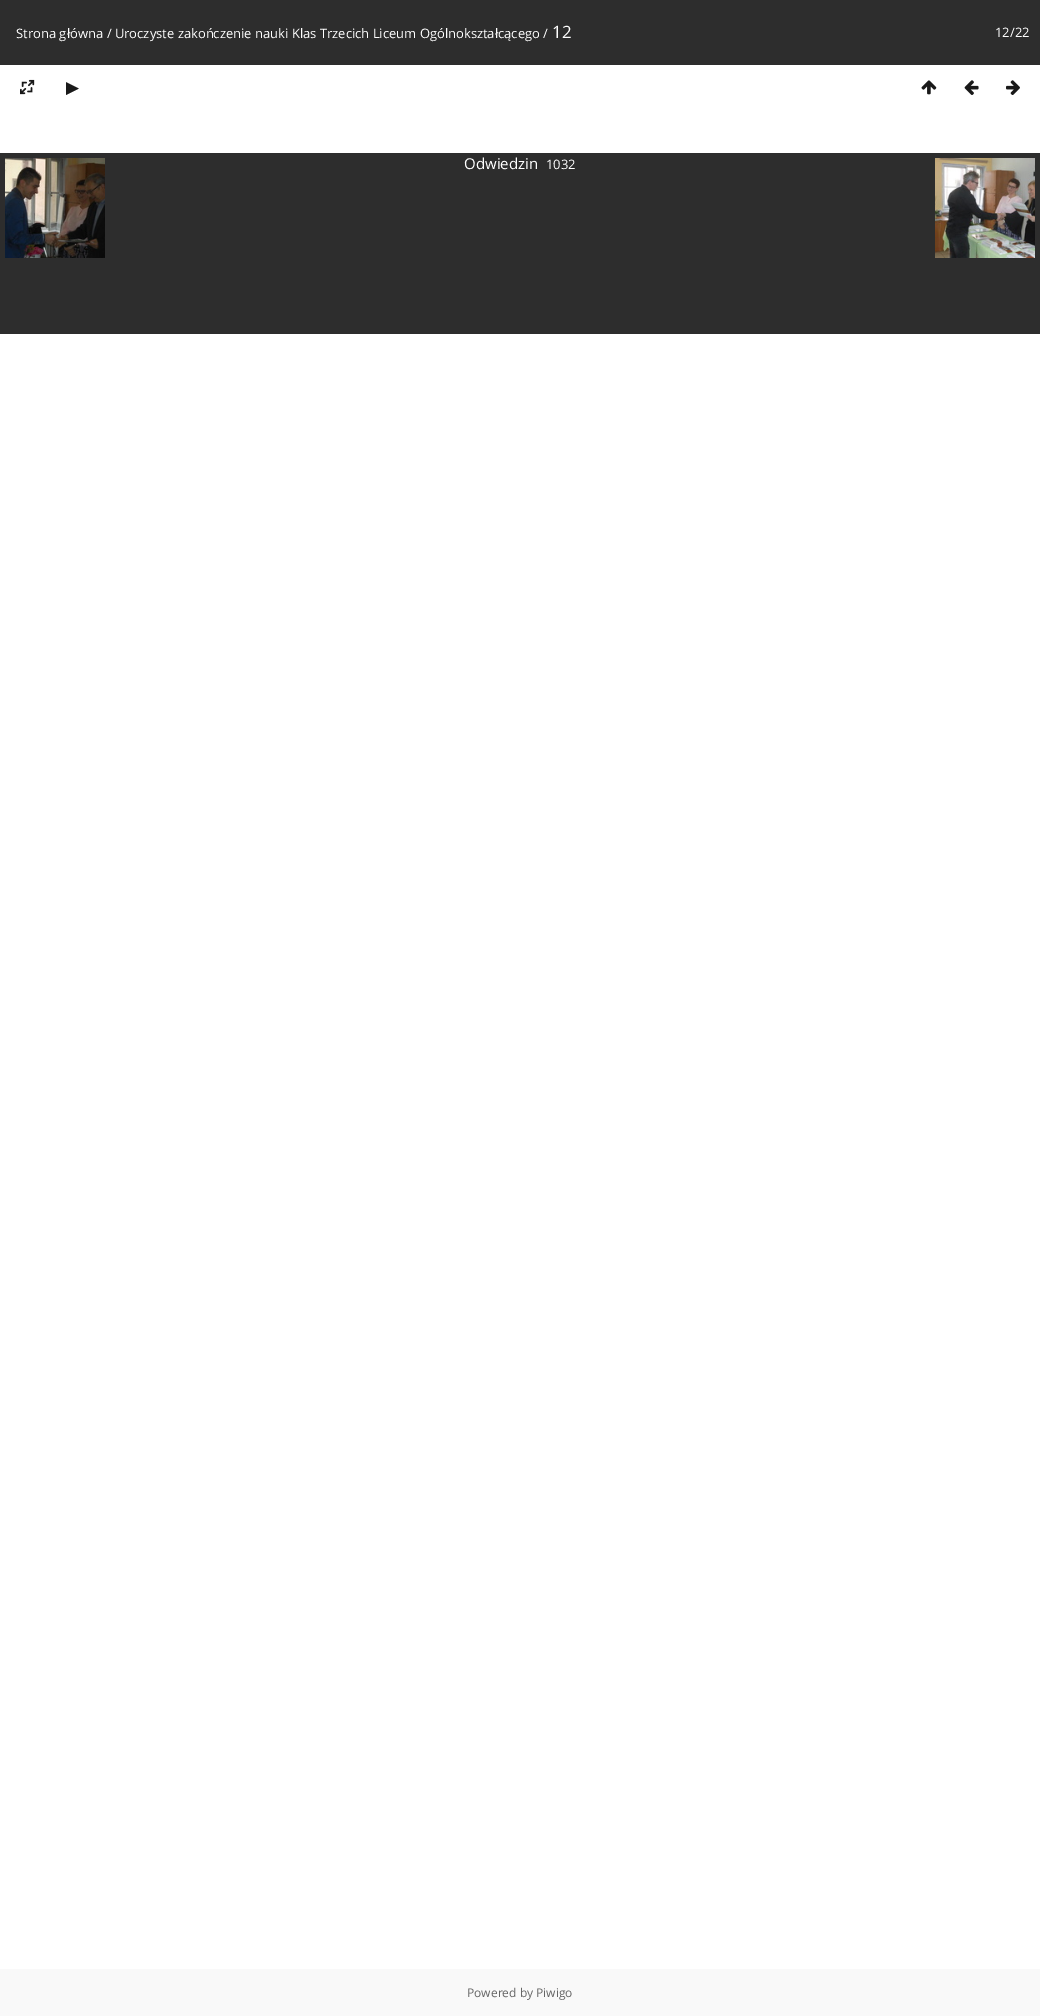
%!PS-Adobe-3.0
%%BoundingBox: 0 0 1040 2016
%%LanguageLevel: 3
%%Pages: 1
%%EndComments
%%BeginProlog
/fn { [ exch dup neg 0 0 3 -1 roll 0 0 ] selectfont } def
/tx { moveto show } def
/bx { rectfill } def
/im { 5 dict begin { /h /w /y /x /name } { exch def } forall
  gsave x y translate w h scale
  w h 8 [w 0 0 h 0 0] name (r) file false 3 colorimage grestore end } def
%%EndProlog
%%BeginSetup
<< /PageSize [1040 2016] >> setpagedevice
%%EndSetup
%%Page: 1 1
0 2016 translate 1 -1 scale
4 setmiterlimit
1 setgray
0 0 1040 2016 bx
0.176 setgray
0 0 1040 65 bx
/OpenSans-Regular 13 fn
1 setgray
(Strona główna / Uroczyste zakończenie nauki Klas Trzecich Liceum Ogólnokształcącego /) 16 38 tx
/OpenSans-Regular 17 fn
(12) 552 38 tx
/OpenSans-Regular 13 fn
(12/22) 995 37 tx
(image0.raw) 20 79 15 16 im
/DejaVuSans-Regular 17 fn
0.102 setgray
(▶) 66 93 tx
(image1.raw) 921 80 16 15 im
(image2.raw) 964 80 15 15 im
(image3.raw) 1006 80 14 15 im
0.176 setgray
0 153 1040 181 bx
/OpenSans-Regular 15 fn
1 setgray
(Odwiedzin) 464 169 tx
/OpenSans-Regular 13 fn
(1032) 546 169 tx
(image4.raw) 5 158 100 100 im
(image5.raw) 935 158 100 100 im
0.976 setgray
0 1969 1040 47 bx
/OpenSans-Regular 12 fn
0.4 setgray
(Powered by Piwigo) 467 1997 tx
showpage
%%EOF
